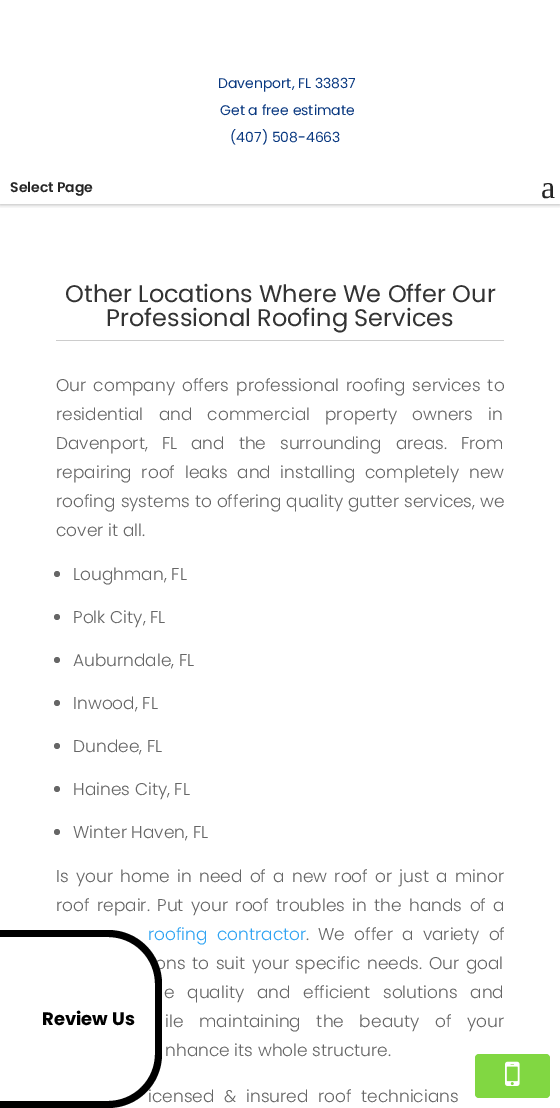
%!PS-Adobe-3.0
%%BoundingBox: 0 0 560 1108
%%LanguageLevel: 3
%%Pages: 1
%%EndComments
%%BeginProlog
/m { moveto } bind def
/l { lineto } bind def
/c { curveto } bind def
/h { closepath } bind def
/f { fill } bind def
/q { gsave } bind def
/Q { grestore } bind def
/fn { [ exch dup neg 0 0 3 -1 roll 0 0 ] selectfont } def
/tx { moveto show } def
/bx { rectfill } def
/al { dup .setfillconstantalpha .setstrokeconstantalpha } def
/ci { newpath 0 360 arc closepath } def
/rr { 5 dict begin { /r /h /w /y /x } { exch def } forall
  x r add y moveto x w add y 2 copy h add r arct x w add y h add x 1 index r arct
  x y h add x y r arct x y 2 copy exch w add exch r arct closepath end } def
/sh { 12 dict begin { /a /b /q /h /w /y /x } { exch def } forall gsave /was 0 def
  9 -2 -9 { dup b mul 4 div /e exch def 1 sub .425 mul 2.718 exch exp 1 add a .99 .min exch div /now exch def
    1 1 now sub 1 was sub div sub al /was now def
    w h .min e 2 mul add 0 gt { x e sub y e sub w e 2 mul add h e 2 mul add
      q e add b .6 mul add w h .min 2 div e add .min 0 .max rr fill } if } for grestore end } def
/im { 5 dict begin { /h /w /y /x /name } { exch def } forall
  gsave x y translate w h scale
  w h 8 [w 0 0 h 0 0] name (r) file false 3 colorimage grestore end } def
%%EndProlog
%%BeginSetup
<< /PageSize [560 1108] /PageUsesTransparency true >> setpagedevice
%%EndSetup
%%Page: 1 1
0 .pushpdf14devicefilter
0 1108 translate 1 -1 scale
4 setmiterlimit
1 setgray
0 0 560 1108 bx
q
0 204 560 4 rectclip
0 setgray
0 0 560 204 0 2.5 0.35 sh
Q
/Poppins-Regular 14 fn
0.035 0.22 0.502 setrgbcolor
(Davenport, FL 33837) 218 88 tx
(Get a free estimate) 220 115 tx
(\(407\) 508-4663) 230 142 tx
/Poppins-SemiBold 14 fn
0.141 setgray
(Select Page) 10 192 tx
/LiberationSerif-Regular 32 fn
(a) 541 198 tx
0.8 setgray
56 340 448 1 bx
/Poppins-Regular 24 fn
0.2 setgray
(Other Locations Where We Offer Our) 65 302 tx
(Professional Roofing Services) 106 326 tx
/Poppins-Light 17 fn
0.4 setgray
56 391 m 2.25 0 32 (Our company offers professional roofing services to) widthshow
56 420 m 10.5 0 32 (residential and commercial property owners in) widthshow
56 449 m 9.25 0 32 (Davenport, FL and the surrounding areas. From) widthshow
56 478 m 5 0 32 (repairing roof leaks and installing completely new) widthshow
56 507 m 0.25 0 32 (roofing systems to offering quality gutter services, we) widthshow
(cover it all.) 56 536 tx
57 574 3 ci f
(Loughman, FL) 73 580 tx
57 617 3 ci f
(Polk City, FL) 73 623 tx
57 660 3 ci f
(Auburndale, FL) 73 666 tx
57 703 3 ci f
(Inwood, FL) 73 709 tx
57 746 3 ci f
(Dundee, FL) 73 752 tx
57 789 3 ci f
(Haines City, FL) 73 795 tx
57 832 3 ci f
(Winter Haven, FL) 73 838 tx
56 882 m 2.6 0 32 (Is your home in need of a new roof or just a minor) widthshow
56 911 m 2.75 0 32 (roof repair. Put your roof troubles in the hands of a) widthshow
0.18 0.639 0.949 setrgbcolor
148 940 m 4.5 0 32 (roofing contractor) widthshow
0.4 setgray
306 940 m 4.5 0 32 (. We offer a variety of) widthshow
155 969 m 2 0 32 (ons to suit your specific needs. Our goal) widthshow
164 998 m 8 0 32 (e quality and efficient solutions and) widthshow
165 1027 m 11 0 32 (ile maintaining the beauty of your) widthshow
(nhance its whole structure.) 165 1056 tx
148 1102 m 5 0 32 (icensed & insured roof technicians) widthshow
1 setgray
0 930 m 108 930 l 138 930 162 954 162 984 c 162 1054 l 162 1084 138 1108 108 1108 c 0 1108 l h f
0 setgray
0 930 m 108 930 l 138 930 162 954 162 984 c 162 1054 l 162 1084 138 1108 108 1108 c 0 1108 l h 0 937 m 108 937 l 134 937 155 958 155 984 c 155 1054 l 155 1080 134 1101 108 1101 c 0 1101 l h eofill
/Poppins-Bold 18 fn
(Review Us) 42 1025 tx
0.506 0.843 0.259 setrgbcolor
475 1054 75 44 4 rr f
(image0.raw) 505 1061 15 25 im
.poppdf14devicefilter showpage
%%EOF
